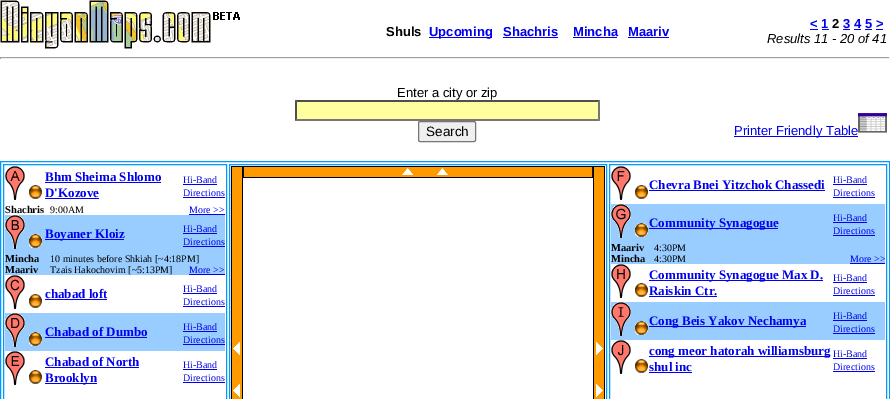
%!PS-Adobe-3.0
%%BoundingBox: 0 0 890 399
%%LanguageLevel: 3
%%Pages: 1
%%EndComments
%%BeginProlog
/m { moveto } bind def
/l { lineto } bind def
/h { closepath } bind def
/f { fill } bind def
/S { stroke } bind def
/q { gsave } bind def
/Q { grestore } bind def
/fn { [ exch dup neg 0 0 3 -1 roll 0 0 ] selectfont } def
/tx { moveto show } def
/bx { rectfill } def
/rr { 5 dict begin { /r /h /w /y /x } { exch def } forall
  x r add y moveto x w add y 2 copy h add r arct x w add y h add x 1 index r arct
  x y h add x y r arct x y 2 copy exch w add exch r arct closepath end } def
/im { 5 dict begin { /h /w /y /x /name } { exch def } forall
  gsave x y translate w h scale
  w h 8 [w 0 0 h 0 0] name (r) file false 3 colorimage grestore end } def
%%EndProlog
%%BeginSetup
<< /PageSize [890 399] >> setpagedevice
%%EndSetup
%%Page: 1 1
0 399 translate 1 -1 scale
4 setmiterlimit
1 setgray
0 0 890 399 bx
(image0.raw) 0 0 240 49 im
/LiberationSans-Bold 13 fn
0 setgray
(Shuls) 386 36 tx
0 0 0.933 setrgbcolor
429 37 63 1 bx
(Upcoming) 429 36 tx
(Shachris) 503 36 tx
503 37 55 1 bx
(Mincha) 573 36 tx
573 37 44 1 bx
(Maariv) 628 36 tx
628 37 41 1 bx
(< 1) 810 28 tx
810 29 8 1 bx
822 29 7 1 bx
0 setgray
(2) 832 28 tx
0 0 0.933 setrgbcolor
(3 4 5 >) 843 28 tx
843 29 7 1 bx
854 29 7 1 bx
865 29 7 1 bx
876 29 7 1 bx
/LiberationSans-Italic 13 fn
0 setgray
(Results 11 - 20 of 41) 767 43 tx
0.624 setgray
0 57 890 1 bx
0.933 setgray
889 57 1 2 bx
0 58 890 1 bx
0.624 setgray
0 57 1 2 bx
/LiberationSans-Regular 13 fn
0 setgray
(Enter a city or zip) 397 97 tx
1 1 0.627 setrgbcolor
295 100 305 21 bx
0.31 setgray
295 100 m 600 100 l 598 102 l 297 102 l h f
0.463 setgray
600 100 m 600 121 l 598 119 l 598 102 l h f
600 121 m 295 121 l 297 119 l 598 119 l h f
0.31 setgray
295 121 m 295 100 l 297 102 l 297 119 l h f
0.937 setgray
418.5 121.5 57 20 1.5 rr q f Q
0.463 setgray
S
/LiberationSans-Regular 13.5 fn
0 setgray
(Search) 426 136 tx
0 0 0.933 setrgbcolor
734 136 124 1 bx
/LiberationSans-Regular 13 fn
(Printer Friendly Table) 734 135 tx
(image1.raw) 858 113 29 20 im
0 0.6 1 setrgbcolor
0.5 161.5 889 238 rectstroke
3.5 164.5 223 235 rectstroke
(image2.raw) 5 166 20 34 im
(image3.raw) 29 185 13 14 im
/LiberationSerif-Bold 13 fn
0 0 0.933 setrgbcolor
(Bhm Sheima Shlomo) 45 181 tx
45 182 116 1 bx
(D'Kozove) 45 197 tx
45 198 54 1 bx
/LiberationSerif-Regular 10 fn
(Hi-Band) 183 183 tx
183 184 34 1 bx
(Directions) 183 196 tx
183 197 42 1 bx
/LiberationSerif-Bold 10.5 fn
0 setgray
(Shachris) 5 213 tx
/LiberationSerif-Regular 10 fn
(9:00AM) 50 213 tx
0 0 0.933 setrgbcolor
(More >>) 189 213 tx
189 214 36 1 bx
0.6 0.8 1 setrgbcolor
5 215 220 60 bx
(image4.raw) 5 215 20 34 im
(image5.raw) 29 234 13 14 im
0 0 0.933 setrgbcolor
45 239 79 1 bx
/LiberationSerif-Bold 13 fn
(Boyaner Kloiz) 45 238 tx
/LiberationSerif-Regular 10 fn
(Hi-Band) 183 232 tx
183 233 34 1 bx
(Directions) 183 245 tx
183 246 42 1 bx
/LiberationSerif-Bold 10.5 fn
0 setgray
(Mincha) 5 262 tx
/LiberationSerif-Regular 10 fn
(10 minutes before Shkiah [~4:18PM]) 50 262 tx
/LiberationSerif-Bold 10.5 fn
(Maariv) 5 273 tx
/LiberationSerif-Regular 10 fn
(Tzais Hakochovim [~5:13PM]) 50 273 tx
0 0 0.933 setrgbcolor
(More >>) 189 273 tx
189 274 36 1 bx
(image6.raw) 5 275 20 34 im
(image3.raw) 29 294 13 14 im
/LiberationSerif-Bold 13 fn
(chabad loft) 45 298 tx
45 299 62 1 bx
/LiberationSerif-Regular 10 fn
(Hi-Band) 183 292 tx
183 293 34 1 bx
(Directions) 183 305 tx
183 306 42 1 bx
0.6 0.8 1 setrgbcolor
5 313 220 38 bx
(image7.raw) 5 313 20 34 im
(image5.raw) 29 332 13 14 im
/LiberationSerif-Bold 13 fn
0 0 0.933 setrgbcolor
(Chabad of Dumbo) 45 336 tx
45 337 102 1 bx
/LiberationSerif-Regular 10 fn
(Hi-Band) 183 330 tx
183 331 34 1 bx
(Directions) 183 343 tx
183 344 42 1 bx
(image8.raw) 5 351 20 34 im
(image3.raw) 29 370 13 14 im
/LiberationSerif-Bold 13 fn
(Chabad of North) 45 366 tx
45 367 94 1 bx
45 383 52 1 bx
(Brooklyn) 45 382 tx
/LiberationSerif-Regular 10 fn
(Hi-Band) 183 368 tx
183 369 34 1 bx
(Directions) 183 381 tx
183 382 42 1 bx
0 0.6 1 setrgbcolor
229.5 164.5 377 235 rectstroke
(image9.raw) 231 166 12 233 im
(image10.raw) 243 166 350 12 im
(image11.raw) 593 166 12 233 im
609.5 164.5 277 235 rectstroke
(image12.raw) 611 166 20 34 im
(image3.raw) 635 185 13 14 im
/LiberationSerif-Bold 13 fn
0 0 0.933 setrgbcolor
(Chevra Bnei Yitzchok Chassedi) 649 189 tx
649 190 176 1 bx
/LiberationSerif-Regular 10 fn
(Hi-Band) 833 183 tx
833 184 34 1 bx
(Directions) 833 196 tx
833 197 42 1 bx
0.6 0.8 1 setrgbcolor
611 204 274 60 bx
(image13.raw) 611 204 20 34 im
(image5.raw) 635 223 13 14 im
0 0 0.933 setrgbcolor
649 228 129 1 bx
/LiberationSerif-Bold 13 fn
(Community Synagogue) 649 227 tx
/LiberationSerif-Regular 10 fn
(Hi-Band) 833 221 tx
833 222 34 1 bx
(Directions) 833 234 tx
833 235 42 1 bx
/LiberationSerif-Bold 10.5 fn
0 setgray
(Maariv) 611 251 tx
/LiberationSerif-Regular 10 fn
(4:30PM) 654 251 tx
/LiberationSerif-Bold 10.5 fn
(Mincha) 611 262 tx
/LiberationSerif-Regular 10 fn
(4:30PM) 654 262 tx
0 0 0.933 setrgbcolor
(More >>) 850 262 tx
850 263 35 1 bx
(image14.raw) 611 264 20 34 im
(image3.raw) 635 283 13 14 im
649 280 174 1 bx
/LiberationSerif-Bold 13 fn
(Community Synagogue Max D.) 649 279 tx
(Raiskin Ctr.) 649 295 tx
649 296 68 1 bx
/LiberationSerif-Regular 10 fn
(Hi-Band) 833 281 tx
833 282 34 1 bx
(Directions) 833 294 tx
833 295 42 1 bx
0.6 0.8 1 setrgbcolor
611 302 274 38 bx
(image15.raw) 611 302 20 34 im
(image5.raw) 635 321 13 14 im
0 0 0.933 setrgbcolor
649 326 157 1 bx
/LiberationSerif-Bold 13 fn
(Cong Beis Yakov Nechamya) 649 325 tx
/LiberationSerif-Regular 10 fn
(Hi-Band) 833 319 tx
833 320 34 1 bx
(Directions) 833 332 tx
833 333 42 1 bx
(image16.raw) 611 340 20 34 im
(image3.raw) 635 359 13 14 im
649 356 181 1 bx
/LiberationSerif-Bold 13 fn
(cong meor hatorah williamsburg) 649 355 tx
(shul inc) 649 371 tx
649 372 43 1 bx
/LiberationSerif-Regular 10 fn
(Hi-Band) 833 357 tx
833 358 34 1 bx
(Directions) 833 370 tx
833 371 42 1 bx
showpage
%%EOF
